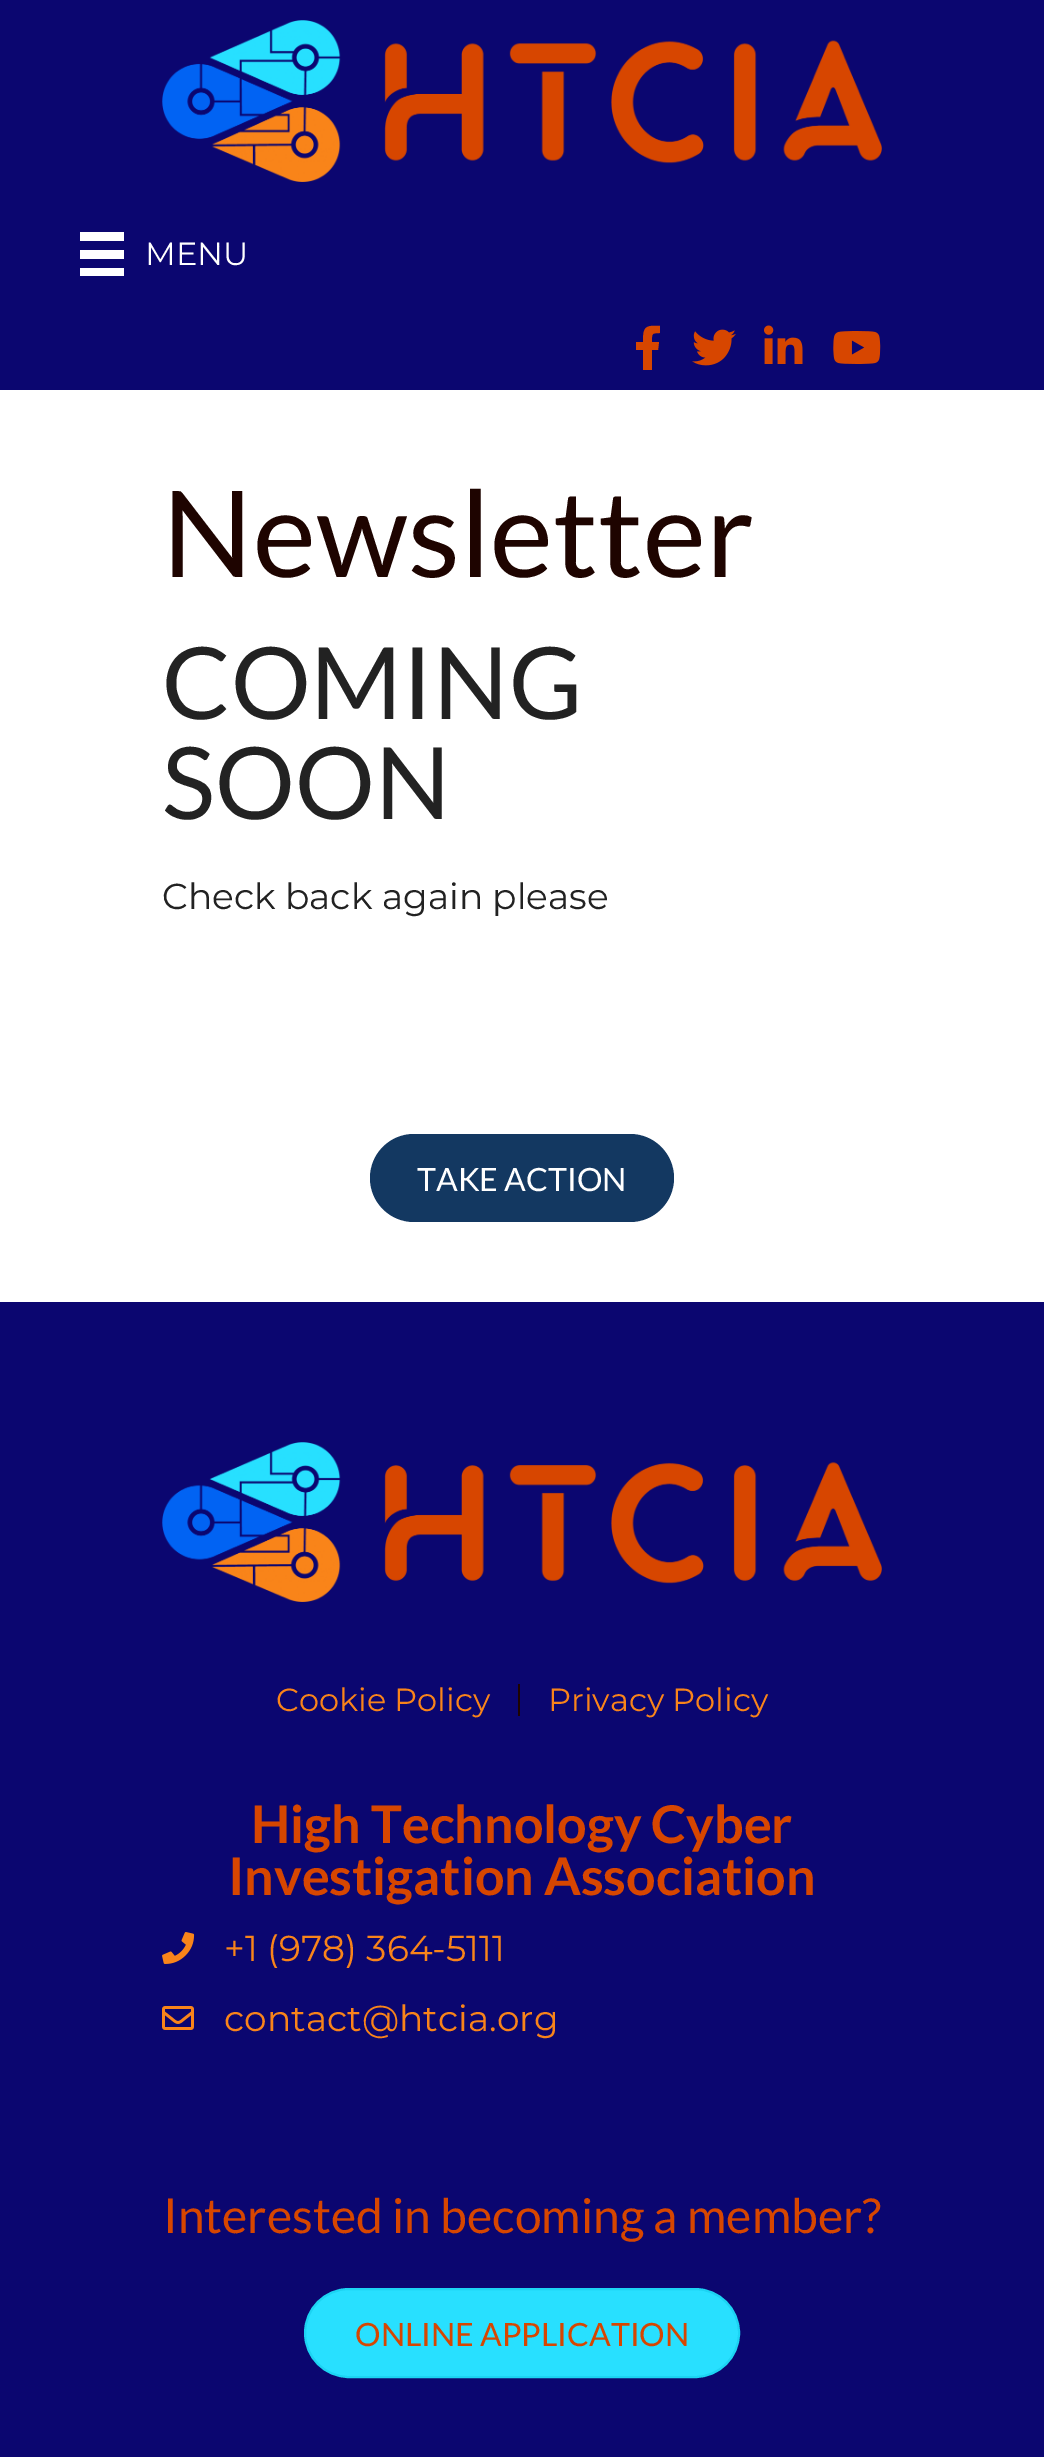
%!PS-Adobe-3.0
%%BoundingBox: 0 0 1044 2457
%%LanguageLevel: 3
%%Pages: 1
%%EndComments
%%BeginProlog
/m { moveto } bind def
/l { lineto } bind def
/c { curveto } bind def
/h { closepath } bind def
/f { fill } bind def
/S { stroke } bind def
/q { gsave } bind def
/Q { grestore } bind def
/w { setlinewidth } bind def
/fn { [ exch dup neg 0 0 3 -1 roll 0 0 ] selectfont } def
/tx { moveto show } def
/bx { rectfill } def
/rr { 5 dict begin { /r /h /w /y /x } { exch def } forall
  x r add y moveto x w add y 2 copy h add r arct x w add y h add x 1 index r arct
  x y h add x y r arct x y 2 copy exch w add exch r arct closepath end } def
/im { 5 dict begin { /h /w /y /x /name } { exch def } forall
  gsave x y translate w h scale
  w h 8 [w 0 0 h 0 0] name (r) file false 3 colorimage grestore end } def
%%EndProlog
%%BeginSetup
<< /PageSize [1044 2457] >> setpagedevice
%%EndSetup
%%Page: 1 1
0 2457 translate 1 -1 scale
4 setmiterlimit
0.043 0.024 0.439 setrgbcolor
0 0 1044 2457 bx
(image0.raw) 162 20 720 162 im
1 setgray
80 232 44 9 bx
80 250 44 9 bx
80 268 44 8 bx
/Montserrat-Regular 32 fn
(MENU) 145 265 tx
0.843 0.275 0 setrgbcolor
658 350 m 652 350 l 652 370 l 643 370 l 643 350 l 636 350 l 636 342 l 643 342 l 643 327 645 325 660 326 c 660 333 l 651 333 652 334 652 342 c 659 342 l h f
(image1.raw) 692 329 44 37 im
(image2.raw) 764 325 39 39 im
(image3.raw) 833 331 48 33 im
1 setgray
0 390 1044 912 bx
/Lato-Regular 120 fn
0.118 0.016 0 setrgbcolor
(Newsletter) 162 577 tx
/Lato-Regular 100 fn
0.133 setgray
(COMING) 162 719 tx
(SOON) 162 819 tx
/Montserrat-Regular 36 fn
(Check back again please) 162 909 tx
0.075 0.22 0.38 setrgbcolor
370 1134 304 88 44 rr f
/Lato-Regular 32 fn
1 setgray
(TAKE ACTION) 417 1191 tx
(image4.raw) 162 1442 720 160 im
/Montserrat-Regular 32 fn
0.976 0.518 0.102 setrgbcolor
(Cookie Policy) 276 1711 tx
0.118 0.016 0 setrgbcolor
518 1684 2 32 bx
0.976 0.518 0.102 setrgbcolor
(Privacy Policy) 548 1711 tx
/Lato-Bold 52 fn
0.843 0.275 0 setrgbcolor
(High Technology Cyber) 251 1843 tx
(Investigation Association) 228 1895 tx
(image5.raw) 162 1932 33 32 im
/Montserrat-Regular 36 fn
0.976 0.518 0.102 setrgbcolor
(+1 \(978\) 364-5111) 224 1961 tx
(image6.raw) 162 2006 32 24 im
(contact@htcia.org) 224 2031 tx
/Lato-Regular 48 fn
0.843 0.275 0 setrgbcolor
(Interested in becoming a member?) 163 2233 tx
0.157 0.878 1 setrgbcolor
305 2289 434 88 44 rr q f Q
0.11 0.831 0.953 setrgbcolor
2 w
S
/Lato-Regular 32 fn
0.843 0.275 0 setrgbcolor
(ONLINE APPLICATION) 355 2346 tx
showpage
%%EOF
